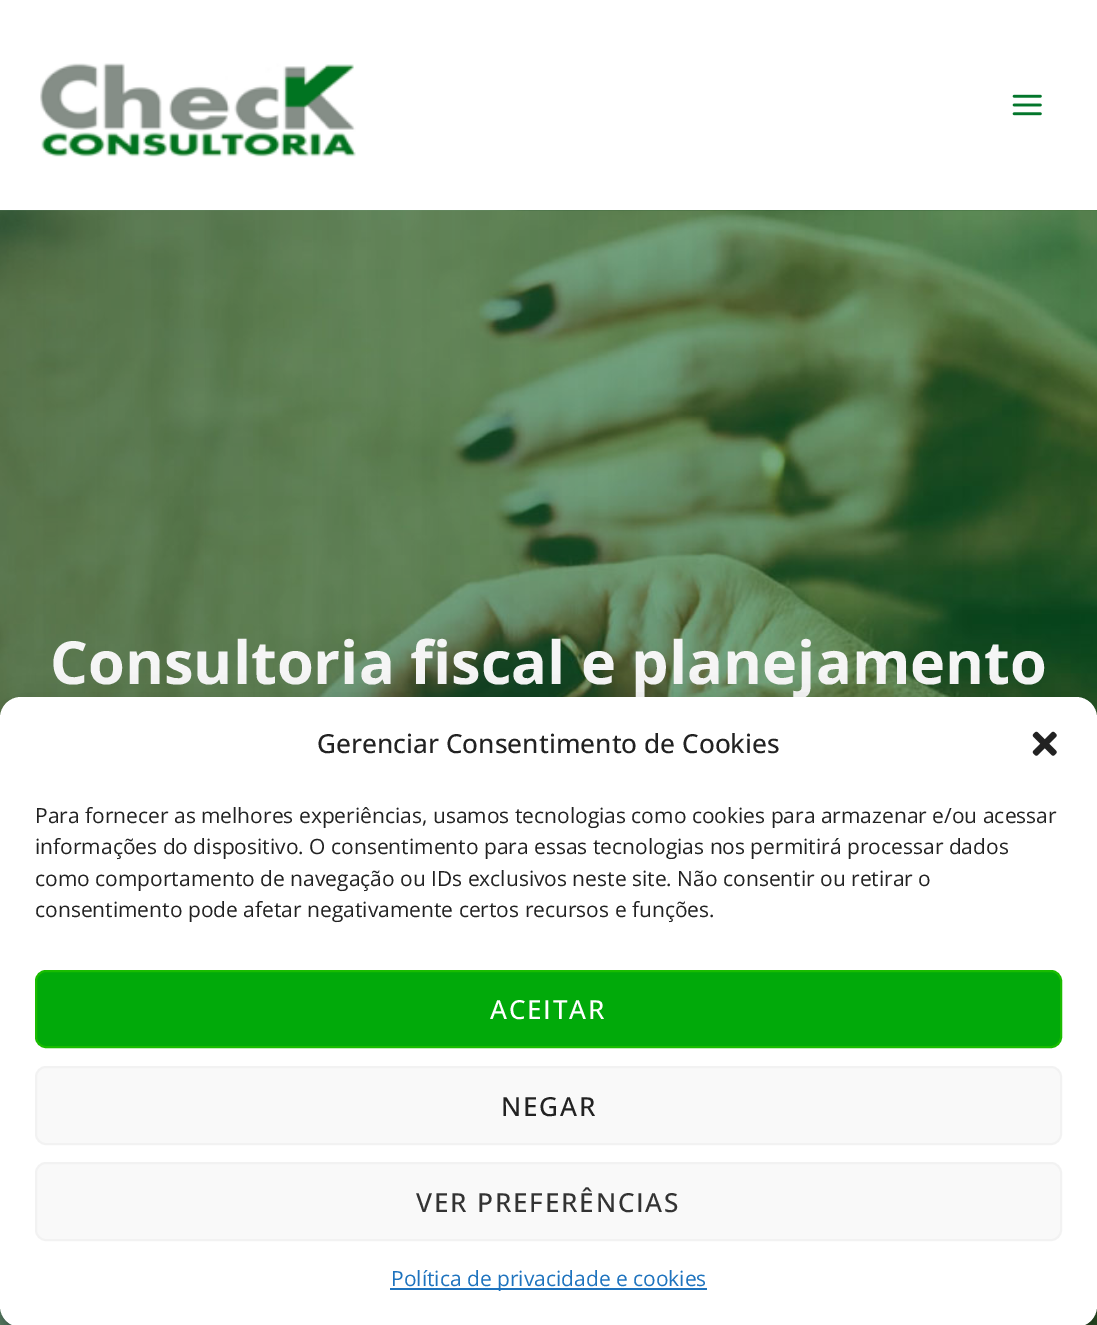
%!PS-Adobe-3.0
%%BoundingBox: 0 0 1097 1325
%%LanguageLevel: 3
%%Pages: 1
%%EndComments
%%BeginProlog
/m { moveto } bind def
/f { fill } bind def
/S { stroke } bind def
/q { gsave } bind def
/Q { grestore } bind def
/w { setlinewidth } bind def
/fn { [ exch dup neg 0 0 3 -1 roll 0 0 ] selectfont } def
/tx { moveto show } def
/bx { rectfill } def
/al { dup .setfillconstantalpha .setstrokeconstantalpha } def
/rr { 5 dict begin { /r /h /w /y /x } { exch def } forall
  x r add y moveto x w add y 2 copy h add r arct x w add y h add x 1 index r arct
  x y h add x y r arct x y 2 copy exch w add exch r arct closepath end } def
/sh { 12 dict begin { /a /b /q /h /w /y /x } { exch def } forall gsave /was 0 def
  9 -2 -9 { dup b mul 4 div /e exch def 1 sub .425 mul 2.718 exch exp 1 add a .99 .min exch div /now exch def
    1 1 now sub 1 was sub div sub al /was now def
    w h .min e 2 mul add 0 gt { x e sub y e sub w e 2 mul add h e 2 mul add
      q e add b .6 mul add w h .min 2 div e add .min 0 .max rr fill } if } for grestore end } def
/im { 5 dict begin { /h /w /y /x /name } { exch def } forall
  gsave x y translate w h scale
  w h 8 [w 0 0 h 0 0] name (r) file false 3 colorimage grestore end } def
%%EndProlog
%%BeginSetup
<< /PageSize [1097 1325] /PageUsesTransparency true >> setpagedevice
%%EndSetup
%%Page: 1 1
0 .pushpdf14devicefilter
0 1325 translate 1 -1 scale
4 setmiterlimit
1 setgray
0 0 1097 1325 bx
(image0.raw) 40 63 316 94 im
(image1.raw) 1012 94 30 22 im
(image2.raw) 0 210 1097 1115 im
/OpenSans-Bold 59.5 fn
0.961 setgray
(Consultoria fiscal e planejamento) 50 684 tx
0 setgray
0 707 1097 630 21 5 0.23 sh
0 714 1097 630 21 17.5 0.19 sh
1 setgray
0 697 1097 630 21 rr f
/OpenSans-Medium 26.25 fn
0.133 setgray
(Gerenciar Consentimento de Cookies) 317 753 tx
(image3.raw) 1032 731 25 25 im
/OpenSans-Regular 21 fn
(Para fornecer as melhores experiências, usamos tecnologias como cookies para armazenar e/ou acessar) 35 823 tx
(informações do dispositivo. O consentimento para essas tecnologias nos permitirá processar dados) 35 854 tx
(como comportamento de navegação ou IDs exclusivos neste site. Não consentir ou retirar o) 35 886 tx
(consentimento pode afetar negativamente certos recursos e funções.) 35 917 tx
0.004 0.667 0.039 setrgbcolor
36 971 1025 76 10 rr q f Q
0.098 0.737 0 setrgbcolor
2 w
S
/OpenSans-Medium 26.25 fn
1 setgray
490 1019 m 1.75 0 (ACEITAR) ashow
0.976 setgray
36 1067 1025 77 10 rr q f Q
0.949 setgray
S
0.133 setgray
501 1116 m 1.75 0 (NEGAR) ashow
0.976 setgray
36 1163 1025 77 10 rr q f Q
0.949 setgray
S
0.2 setgray
416 1212 m 1.75 0 (VER PREFERÊNCIAS) ashow
0.118 0.451 0.745 setrgbcolor
390 1288 317 2 bx
/OpenSans-Regular 21 fn
(Política de privacidade e cookies) 391 1286 tx
.poppdf14devicefilter showpage
%%EOF
